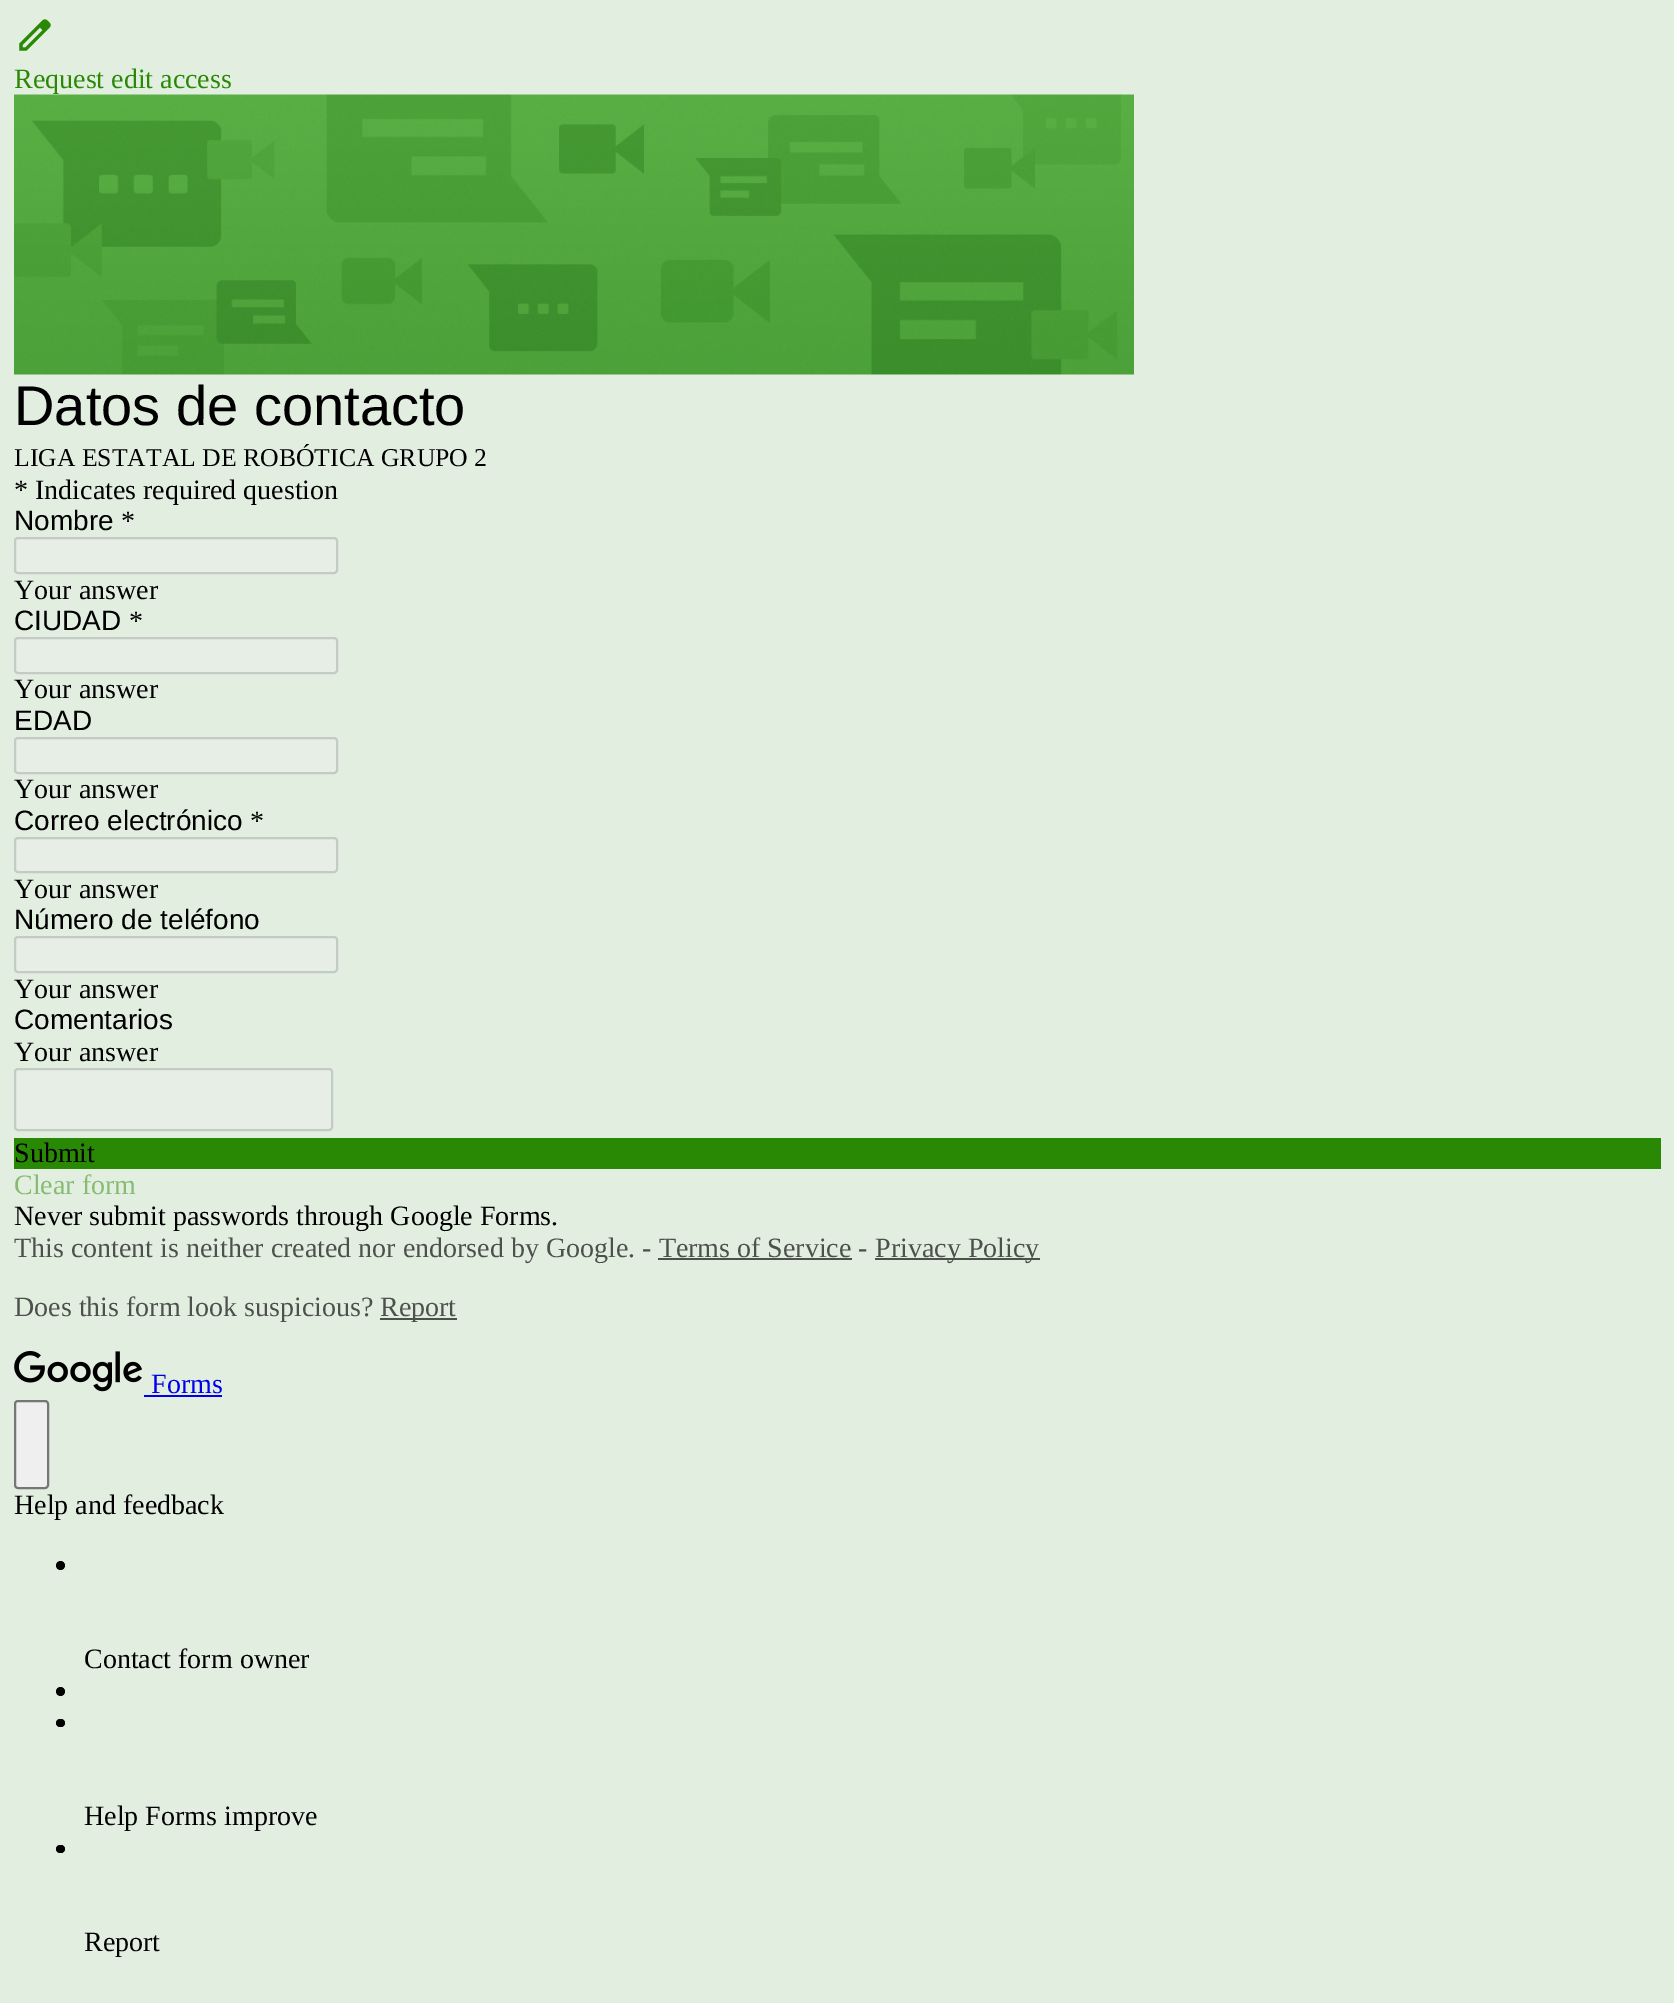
%!PS-Adobe-3.0
%%BoundingBox: 0 0 1674 2003
%%LanguageLevel: 3
%%Pages: 1
%%EndComments
%%BeginProlog
/f { fill } bind def
/S { stroke } bind def
/q { gsave } bind def
/Q { grestore } bind def
/w { setlinewidth } bind def
/fn { [ exch dup neg 0 0 3 -1 roll 0 0 ] selectfont } def
/tx { moveto show } def
/bx { rectfill } def
/ci { newpath 0 360 arc closepath } def
/rr { 5 dict begin { /r /h /w /y /x } { exch def } forall
  x r add y moveto x w add y 2 copy h add r arct x w add y h add x 1 index r arct
  x y h add x y r arct x y 2 copy exch w add exch r arct closepath end } def
/im { 5 dict begin { /h /w /y /x /name } { exch def } forall
  gsave x y translate w h scale
  w h 8 [w 0 0 h 0 0] name (r) file false 3 colorimage grestore end } def
%%EndProlog
%%BeginSetup
<< /PageSize [1674 2003] >> setpagedevice
%%EndSetup
%%Page: 1 1
0 2003 translate 1 -1 scale
4 setmiterlimit
0.886 0.933 0.878 setrgbcolor
0 0 1674 2003 bx
(image0.raw) 19 19 32 32 im
/LiberationSerif-Regular 28 fn
0.161 0.537 0.016 setrgbcolor
(Request edit access) 14 88 tx
(image1.raw) 14 94 1120 281 im
/LiberationSans-Regular 56 fn
0 setgray
(Datos de contacto) 14 425 tx
/LiberationSerif-Regular 25.7 fn
(LIGA ESTATAL DE ROBÓTICA GRUPO 2) 14 466 tx
/LiberationSerif-Regular 28 fn
(* Indicates required question) 14 499 tx
/LiberationSans-Regular 28 fn
(Nombre) 14 530 tx
/LiberationSerif-Regular 28 fn
(*) 121 530 tx
0.902 0.933 0.898 setrgbcolor
15 538 322 35 3 rr q f Q
0.769 0.792 0.769 setrgbcolor
2 w
S
0 setgray
(Your answer) 14 599 tx
/LiberationSans-Regular 28 fn
(CIUDAD) 14 630 tx
/LiberationSerif-Regular 28 fn
(*) 129 630 tx
0.902 0.933 0.898 setrgbcolor
15 638 322 35 3 rr q f Q
0.769 0.792 0.769 setrgbcolor
S
0 setgray
(Your answer) 14 698 tx
/LiberationSans-Regular 28 fn
(EDAD) 14 730 tx
0.902 0.933 0.898 setrgbcolor
15 738 322 35 3 rr q f Q
0.769 0.792 0.769 setrgbcolor
S
/LiberationSerif-Regular 28 fn
0 setgray
(Your answer) 14 798 tx
/LiberationSans-Regular 28 fn
(Correo electrónico) 14 830 tx
/LiberationSerif-Regular 28 fn
(*) 250 830 tx
0.902 0.933 0.898 setrgbcolor
15 838 322 34 3 rr q f Q
0.769 0.792 0.769 setrgbcolor
S
0 setgray
(Your answer) 14 898 tx
/LiberationSans-Regular 28 fn
(Número de teléfono) 14 929 tx
0.902 0.933 0.898 setrgbcolor
15 937 322 35 3 rr q f Q
0.769 0.792 0.769 setrgbcolor
S
/LiberationSerif-Regular 28 fn
0 setgray
(Your answer) 14 998 tx
/LiberationSans-Regular 28 fn
(Comentarios) 14 1029 tx
/LiberationSerif-Regular 28 fn
(Your answer) 14 1061 tx
0.902 0.933 0.898 setrgbcolor
15 1069 317 61 3 rr q f Q
0.769 0.792 0.769 setrgbcolor
S
0.161 0.537 0.016 setrgbcolor
14 1138 1647 31 bx
0 setgray
(Submit) 14 1162 tx
0.525 0.737 0.447 setrgbcolor
(Clear form) 14 1194 tx
0 setgray
(Never submit passwords through Google Forms.) 14 1225 tx
0.302 0.318 0.298 setrgbcolor
(This content is neither created nor endorsed by Google. - Terms of Service -) 14 1257 tx
875 1258 165 2 bx
(Privacy Policy) 875 1257 tx
658 1258 194 2 bx
(Does this form look suspicious?) 14 1316 tx
380 1318 77 2 bx
(Report) 380 1316 tx
(image2.raw) 14 1351 128 41 im
0 0 0.933 setrgbcolor
(Forms) 151 1393 tx
144 1395 78 2 bx
0.937 setgray
15 1401 33 87 3 rr q f Q
0.463 setgray
S
0 setgray
(Help and feedback) 14 1514 tx
60.5 1565.5 4.5 ci f
(Contact form owner) 84 1668 tx
60.5 1691.5 4.5 ci f
56 1719 9 8 4 rr f
(Help Forms improve) 84 1825 tx
56 1845 9 8 4 rr f
(Report) 84 1951 tx
showpage
%%EOF
